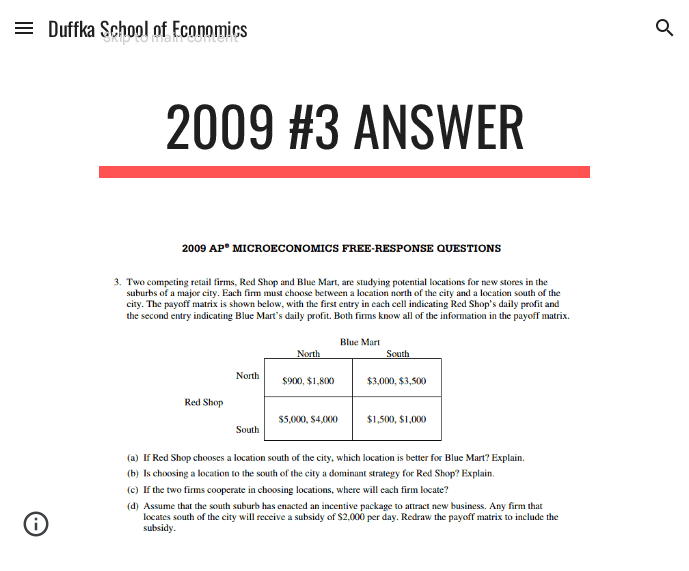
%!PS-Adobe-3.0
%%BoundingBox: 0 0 689 571
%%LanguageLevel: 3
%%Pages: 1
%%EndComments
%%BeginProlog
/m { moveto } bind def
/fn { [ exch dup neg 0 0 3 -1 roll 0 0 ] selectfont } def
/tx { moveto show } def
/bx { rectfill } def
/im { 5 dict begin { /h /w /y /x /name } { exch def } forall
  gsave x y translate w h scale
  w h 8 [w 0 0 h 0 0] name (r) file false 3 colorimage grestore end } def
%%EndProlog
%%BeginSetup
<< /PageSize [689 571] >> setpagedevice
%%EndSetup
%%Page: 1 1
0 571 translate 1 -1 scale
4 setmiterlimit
1 setgray
0 0 689 571 bx
0.122 setgray
15 22 18 2 bx
15 27 18 2 bx
15 32 18 2 bx
/Oswald-Regular 20 fn
(Duffka School of Economics) 48 37 tx
(image0.raw) 656 19 18 18 im
/Oswald-Regular 54.75 fn
(2009 #3 ANSWER) 165 149 tx
1 0.322 0.322 setrgbcolor
99 166 491 12 bx
(image1.raw) 114 243 456 290 im
(image2.raw) 23 511 26 26 im
/GoogleSans-Medium 14 fn
0.816 setgray
103 42 m 0.1 0 (Skip to main content) ashow
showpage
%%EOF
